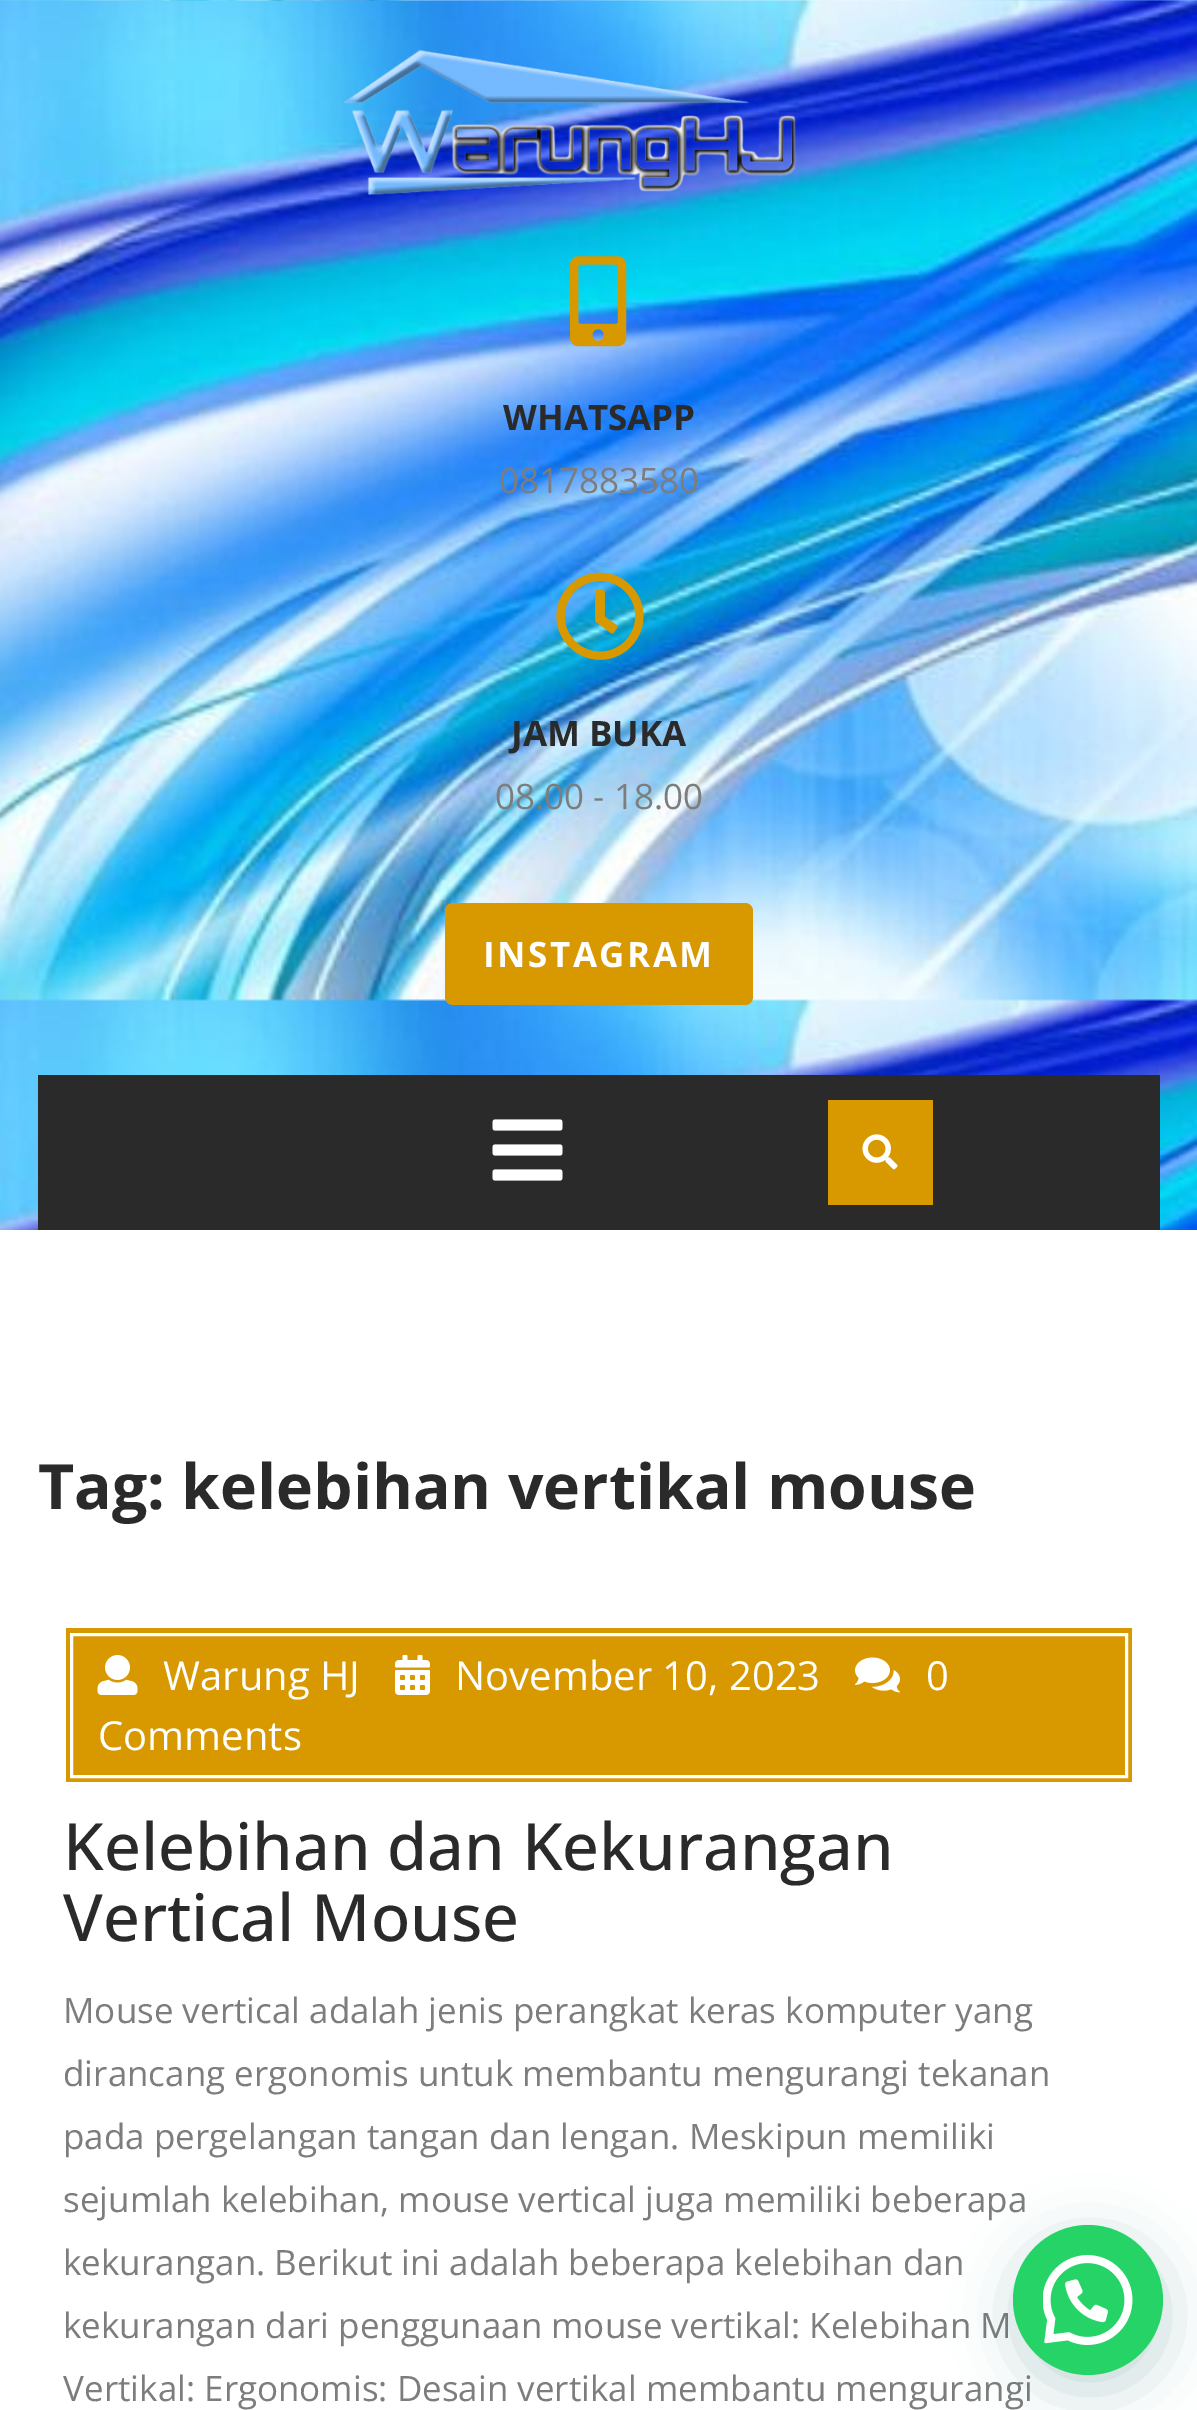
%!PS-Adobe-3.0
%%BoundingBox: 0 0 1197 2410
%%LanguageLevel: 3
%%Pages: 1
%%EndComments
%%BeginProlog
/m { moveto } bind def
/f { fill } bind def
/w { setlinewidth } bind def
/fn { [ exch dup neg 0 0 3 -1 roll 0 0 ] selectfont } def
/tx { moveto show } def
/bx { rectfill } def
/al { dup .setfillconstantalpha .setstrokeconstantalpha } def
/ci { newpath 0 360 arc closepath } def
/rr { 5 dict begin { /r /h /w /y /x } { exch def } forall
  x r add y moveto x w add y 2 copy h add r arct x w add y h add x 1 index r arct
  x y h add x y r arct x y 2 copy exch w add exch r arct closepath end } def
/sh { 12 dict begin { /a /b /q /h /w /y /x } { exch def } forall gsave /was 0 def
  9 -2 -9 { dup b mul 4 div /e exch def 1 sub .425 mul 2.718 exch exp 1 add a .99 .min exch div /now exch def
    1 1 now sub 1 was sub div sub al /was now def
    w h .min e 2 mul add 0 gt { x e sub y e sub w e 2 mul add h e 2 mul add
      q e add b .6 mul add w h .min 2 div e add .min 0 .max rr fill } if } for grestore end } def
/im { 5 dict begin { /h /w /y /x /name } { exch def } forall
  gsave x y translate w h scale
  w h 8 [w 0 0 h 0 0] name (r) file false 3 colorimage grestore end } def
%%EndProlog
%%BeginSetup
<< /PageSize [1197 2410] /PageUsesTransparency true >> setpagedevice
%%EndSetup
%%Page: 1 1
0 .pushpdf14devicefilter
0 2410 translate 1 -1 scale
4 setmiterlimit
1 setgray
0 0 1197 2410 bx
(image0.raw) 0 0 1197 1230 im
(image1.raw) 344 49 452 147 im
(image2.raw) 570 256 57 91 im
/OpenSans-Bold 35 fn
0.165 setgray
(WHATSAPP) 503 430 tx
/OpenSans-Regular 35 fn
0.49 setgray
(0817883580) 499 493 tx
(image3.raw) 556 572 88 88 im
/OpenSans-Bold 35 fn
0.165 setgray
(JAM BUKA) 511 746 tx
/OpenSans-Regular 35 fn
0.49 setgray
(08.00 - 18.00) 495 809 tx
0.843 0.596 0 setrgbcolor
445 903 308 102 8 rr f
/OpenSans-Bold 35 fn
1 setgray
483 967 m 2.5 0 (INSTAGRAM) ashow
0.165 setgray
38 1075 1122 155 bx
(image4.raw) 492 1119 71 62 im
0.843 0.596 0 setrgbcolor
828 1100 105 105 bx
(image5.raw) 862 1134 36 36 im
/OpenSans-Bold 62.5 fn
0.165 setgray
(Tag: kelebihan vertikal mouse) 38 1509 tx
0.843 0.596 0 setrgbcolor
66 1628 1066 154 bx
1 setgray
3 w
71.5 1634.5 1055 142 rectstroke
(image6.raw) 395 1655 35 40 im
/OpenSans-Regular 40 fn
(November 10, 2023) 455 1690 tx
(image7.raw) 855 1657 45 36 im
(0) 926 1690 tx
(Comments) 98 1750 tx
(image8.raw) 97 1655 41 40 im
(Warung HJ) 163 1690 tx
/OpenSans-Medium 65 fn
0.165 setgray
(Kelebihan dan Kekurangan) 63 1870 tx
(Vertical Mouse) 63 1941 tx
/OpenSans-Regular 35 fn
0.49 setgray
(Mouse vertical adalah jenis perangkat keras komputer yang) 63 2023 tx
(dirancang ergonomis untuk membantu mengurangi tekanan) 63 2086 tx
(pada pergelangan tangan dan lengan. Meskipun memiliki) 63 2149 tx
(sejumlah kelebihan, mouse vertical juga memiliki beberapa) 63 2212 tx
(kekurangan. Berikut ini adalah beberapa kelebihan dan) 63 2275 tx
(kekurangan dari penggunaan mouse vertikal: Kelebihan M) 63 2338 tx
(Vertikal: Ergonomis: Desain vertikal membantu mengurangi) 63 2401 tx
0.027 0.369 0.329 setrgbcolor
1015 2240 150 150 75 30 0.24 sh
0.145 0.827 0.4 setrgbcolor
1088 2300 75 ci f
(image9.raw) 1043 2255 90 90 im
.poppdf14devicefilter showpage
%%EOF
